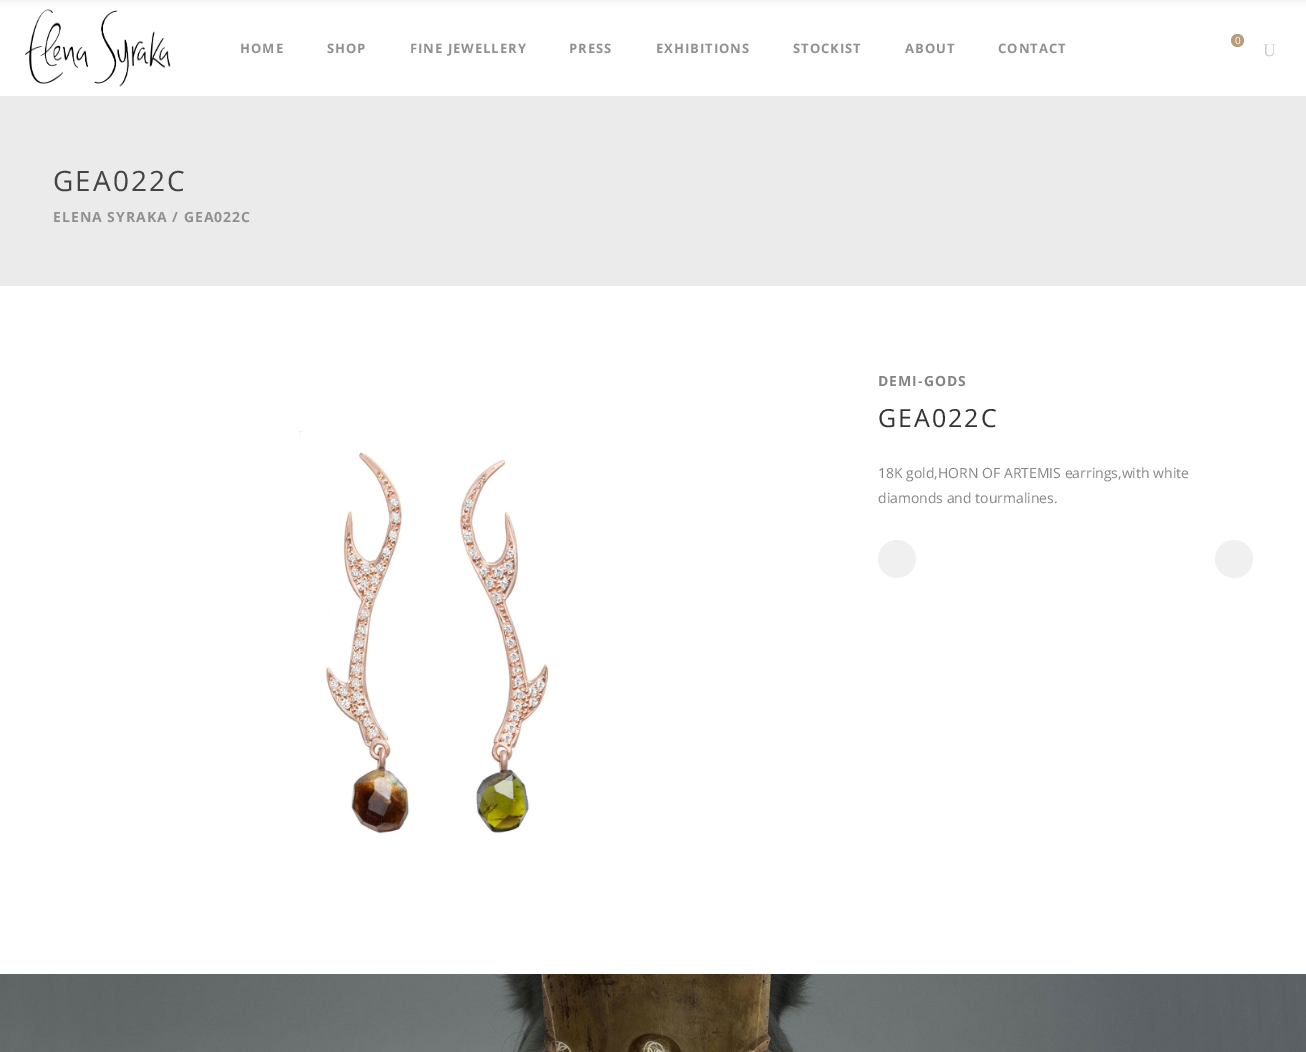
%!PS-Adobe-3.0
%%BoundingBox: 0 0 1306 1052
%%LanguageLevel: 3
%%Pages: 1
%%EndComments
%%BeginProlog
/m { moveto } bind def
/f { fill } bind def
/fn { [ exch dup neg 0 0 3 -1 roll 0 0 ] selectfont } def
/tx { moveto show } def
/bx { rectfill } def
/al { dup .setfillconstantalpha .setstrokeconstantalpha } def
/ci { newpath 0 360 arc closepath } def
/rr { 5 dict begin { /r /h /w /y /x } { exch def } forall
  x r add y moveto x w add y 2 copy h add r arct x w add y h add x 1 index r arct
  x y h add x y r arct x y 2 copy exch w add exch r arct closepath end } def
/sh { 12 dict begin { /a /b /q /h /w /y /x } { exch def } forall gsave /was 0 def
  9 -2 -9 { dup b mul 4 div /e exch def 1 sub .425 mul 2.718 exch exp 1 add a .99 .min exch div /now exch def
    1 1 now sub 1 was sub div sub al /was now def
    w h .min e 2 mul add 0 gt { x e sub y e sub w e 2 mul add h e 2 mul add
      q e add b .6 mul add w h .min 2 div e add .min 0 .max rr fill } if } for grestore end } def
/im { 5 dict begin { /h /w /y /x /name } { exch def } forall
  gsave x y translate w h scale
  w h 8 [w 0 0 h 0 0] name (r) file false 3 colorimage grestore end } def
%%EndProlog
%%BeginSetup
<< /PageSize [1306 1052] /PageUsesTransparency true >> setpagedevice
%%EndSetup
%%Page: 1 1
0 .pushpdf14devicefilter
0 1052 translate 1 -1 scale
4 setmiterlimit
1 setgray
0 0 1306 1052 bx
(image0.raw) 25 9 146 78 im
0 setgray
0 -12 1306 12 0 4 0.09 sh
/OpenSans-Bold 13 fn
0.565 setgray
240 53 m 1 0 (HOME) ashow
327 53 m 1 0 (SHOP) ashow
410 53 m 1 0 (FINE JEWELLERY) ashow
569 53 m 1 0 (PRESS) ashow
656 53 m 1 0 (EXHIBITIONS) ashow
793 53 m 1 0 (STOCKIST) ashow
905 53 m 1 0 (ABOUT) ashow
998 53 m 1 0 (CONTACT) ashow
0.718 0.612 0.49 setrgbcolor
1237.5 40.5 6.5 ci f
/OpenSans-Regular 10 fn
1 setgray
(0) 1235 44 tx
/LiberationSerif-Regular 18 fn
0.8 setgray
(U) 1263 56 tx
0.922 setgray
0 96 1306 190 bx
/OpenSans-Regular 28 fn
0.267 setgray
53 191 m 2 0 (GEA022C) ashow
/OpenSans-Bold 14 fn
0.565 setgray
53 222 m 1 0 (ELENA SYRAKA / GEA022C) ashow
(image1.raw) 299 431 251 403 im
0.522 setgray
878 386 m 1 0 (DEMI-GODS) ashow
/OpenSans-Regular 25 fn
0.2 setgray
878 427 m 2 0 (GEA022C) ashow
/OpenSans-Regular 14 fn
0.522 setgray
(18K gold,HORN OF ARTEMIS earrings,with white) 878 478 tx
(diamonds and tourmalines.) 878 503 tx
0.941 setgray
897 559 19 ci f
1234 559 19 ci f
(image2.raw) 0 974 1306 78 im
.poppdf14devicefilter showpage
%%EOF
